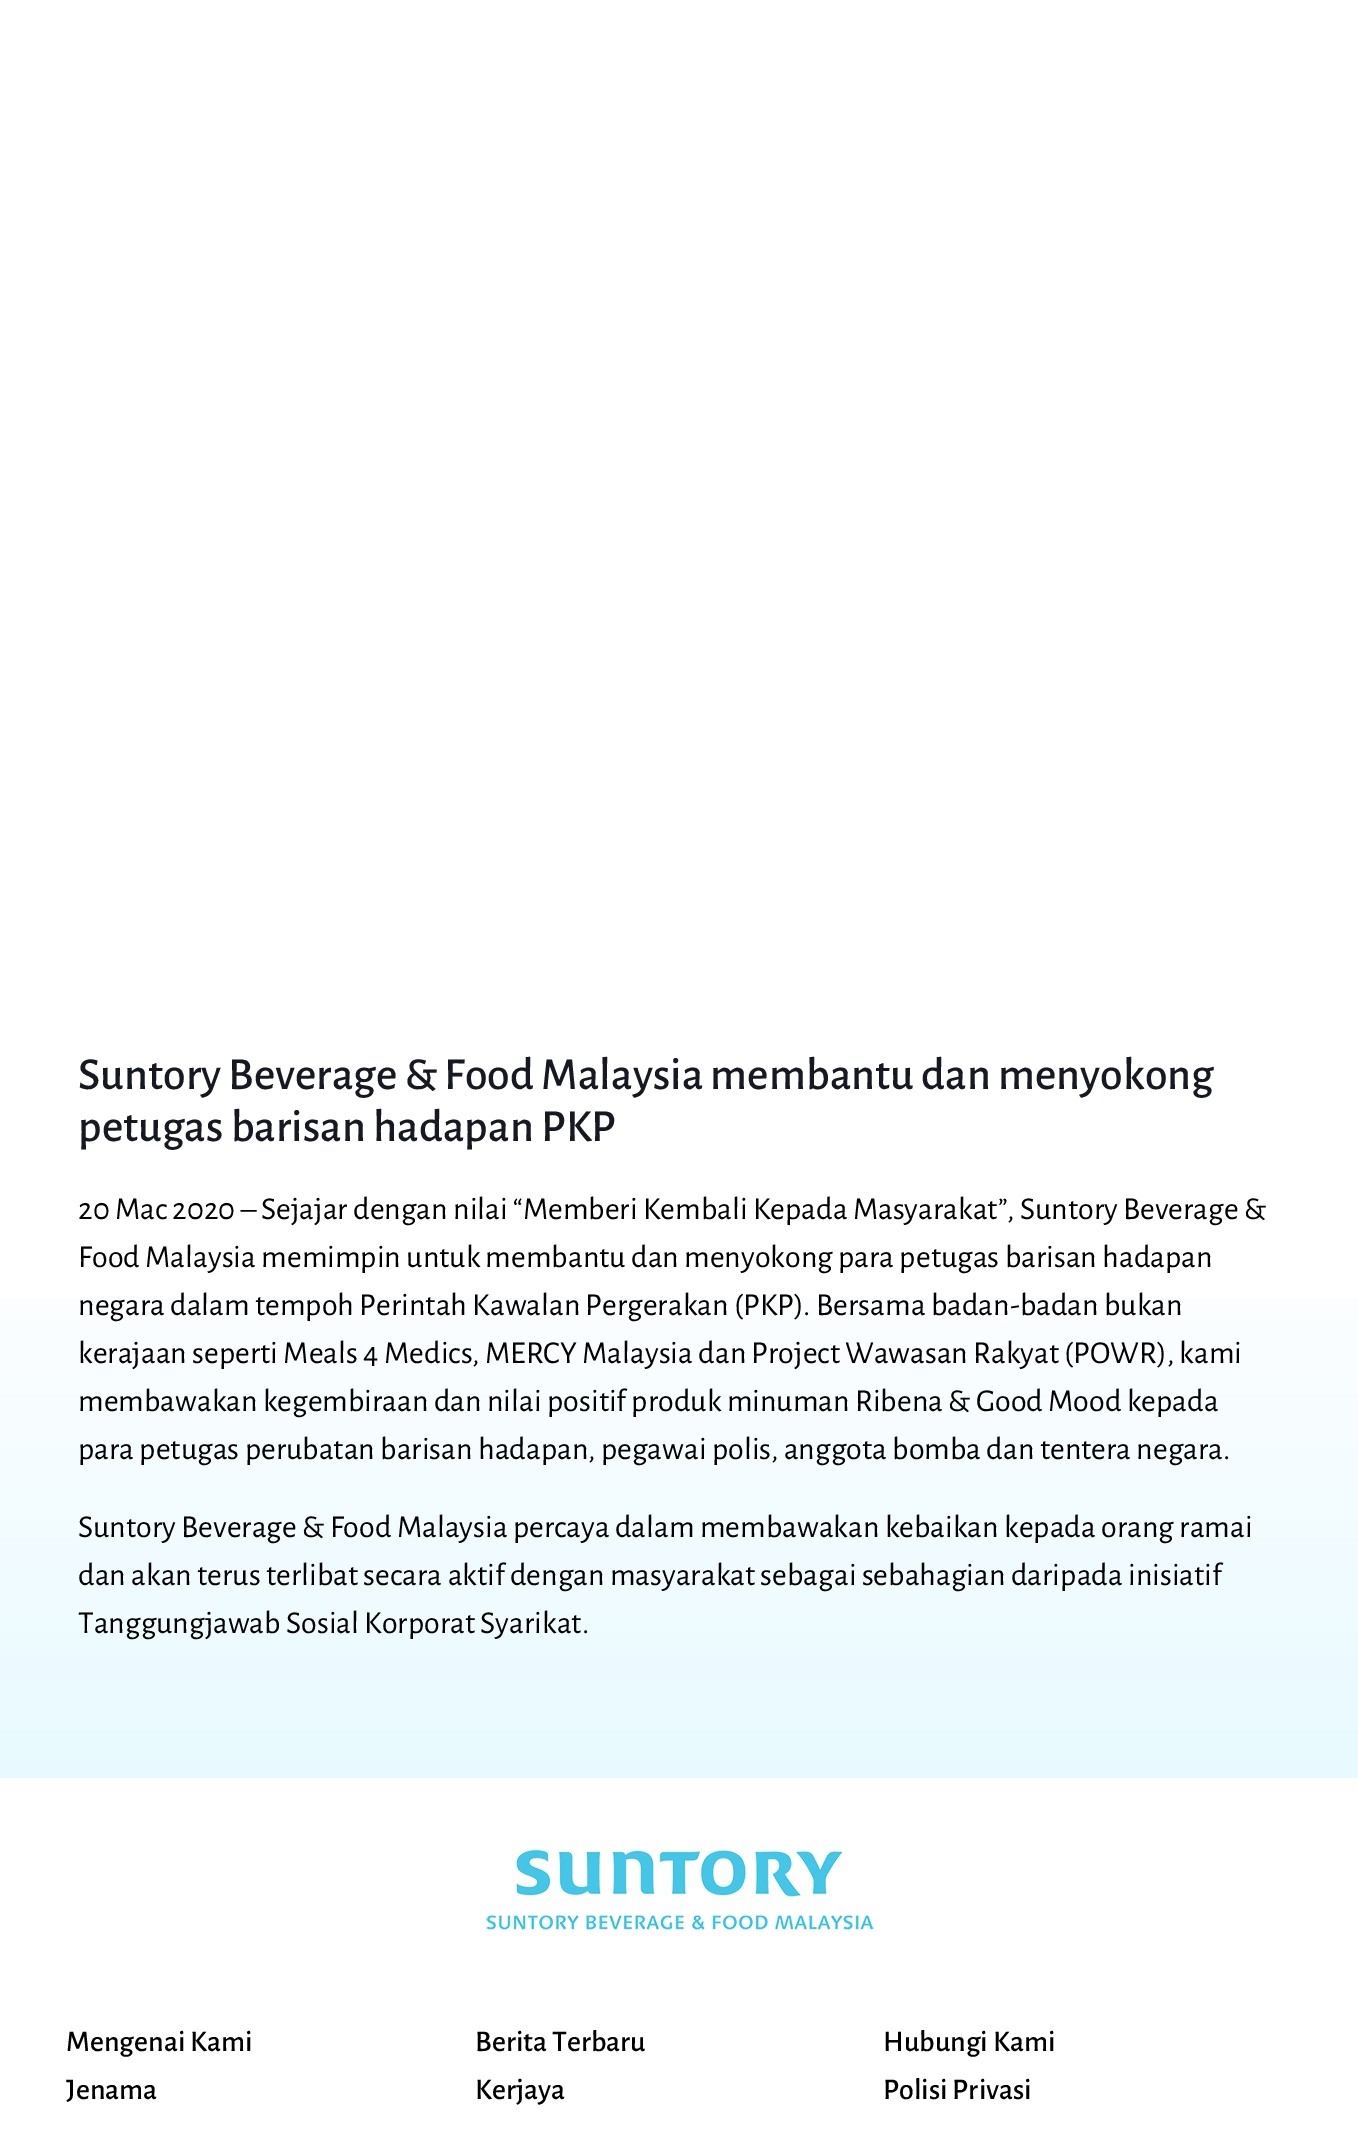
%!PS-Adobe-3.0
%%BoundingBox: 0 0 1358 2129
%%LanguageLevel: 3
%%Pages: 1
%%EndComments
%%BeginProlog
/m { moveto } bind def
/l { lineto } bind def
/h { closepath } bind def
/q { gsave } bind def
/Q { grestore } bind def
/fn { [ exch dup neg 0 0 3 -1 roll 0 0 ] selectfont } def
/tx { moveto show } def
/bx { rectfill } def
/im { 5 dict begin { /h /w /y /x /name } { exch def } forall
  gsave x y translate w h scale
  w h 8 [w 0 0 h 0 0] name (r) file false 3 colorimage grestore end } def
%%EndProlog
%%BeginSetup
<< /PageSize [1358 2129] >> setpagedevice
%%EndSetup
%%Page: 1 1
0 2129 translate 1 -1 scale
4 setmiterlimit
1 setgray
0 0 1358 2129 bx
q 0 1298 m 1358 1298 l 1358 1778 l 0 1778 l h clip newpath
<< /ShadingType 2 /ColorSpace /DeviceRGB /Coords [679 -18 679 1778] /Extend [true true] /Function << /FunctionType 3 /Domain [0 1] /Functions [<< /FunctionType 2 /Domain [0 1] /C0 [1 1 1] /C1 [1 1 1] /N 1 >> << /FunctionType 2 /Domain [0 1] /C0 [1 1 1] /C1 [0.91 0.98 1] /N 1 >>] /Bounds [0.7] /Encode [0 1 0 1] >> >> shfill Q
/AlegreyaSans-Medium 46 fn
0.086 0.098 0.133 setrgbcolor
(Suntory Beverage & Food Malaysia membantu dan menyokong) 78 1089 tx
(petugas barisan hadapan PKP) 78 1141 tx
/AlegreyaSans-Regular 32 fn
0 setgray
(20 Mac 2020 – Sejajar dengan nilai “Memberi Kembali Kepada Masyarakat”, Suntory Beverage &) 78 1219 tx
(Food Malaysia memimpin untuk membantu dan menyokong para petugas barisan hadapan) 78 1267 tx
(negara dalam tempoh Perintah Kawalan Pergerakan \(PKP\). Bersama badan-badan bukan) 78 1315 tx
(kerajaan seperti Meals 4 Medics, MERCY Malaysia dan Project Wawasan Rakyat \(POWR\), kami) 78 1363 tx
(membawakan kegembiraan dan nilai positif produk minuman Ribena & Good Mood kepada) 78 1411 tx
(para petugas perubatan barisan hadapan, pegawai polis, anggota bomba dan tentera negara.) 78 1459 tx
(Suntory Beverage & Food Malaysia percaya dalam membawakan kebaikan kepada orang ramai) 78 1537 tx
(dan akan terus terlibat secara aktif dengan masyarakat sebagai sebahagian daripada inisiatif) 78 1585 tx
(Tanggungjawab Sosial Korporat Syarikat.) 78 1633 tx
(image0.raw) 486 1849 388 81 im
/AlegreyaSans-Medium 30 fn
(Mengenai Kami) 66 2051 tx
(Jenama) 66 2099 tx
(Berita Terbaru) 475 2051 tx
(Kerjaya) 475 2099 tx
(Hubungi Kami) 883 2051 tx
(Polisi Privasi) 883 2099 tx
showpage
%%EOF
